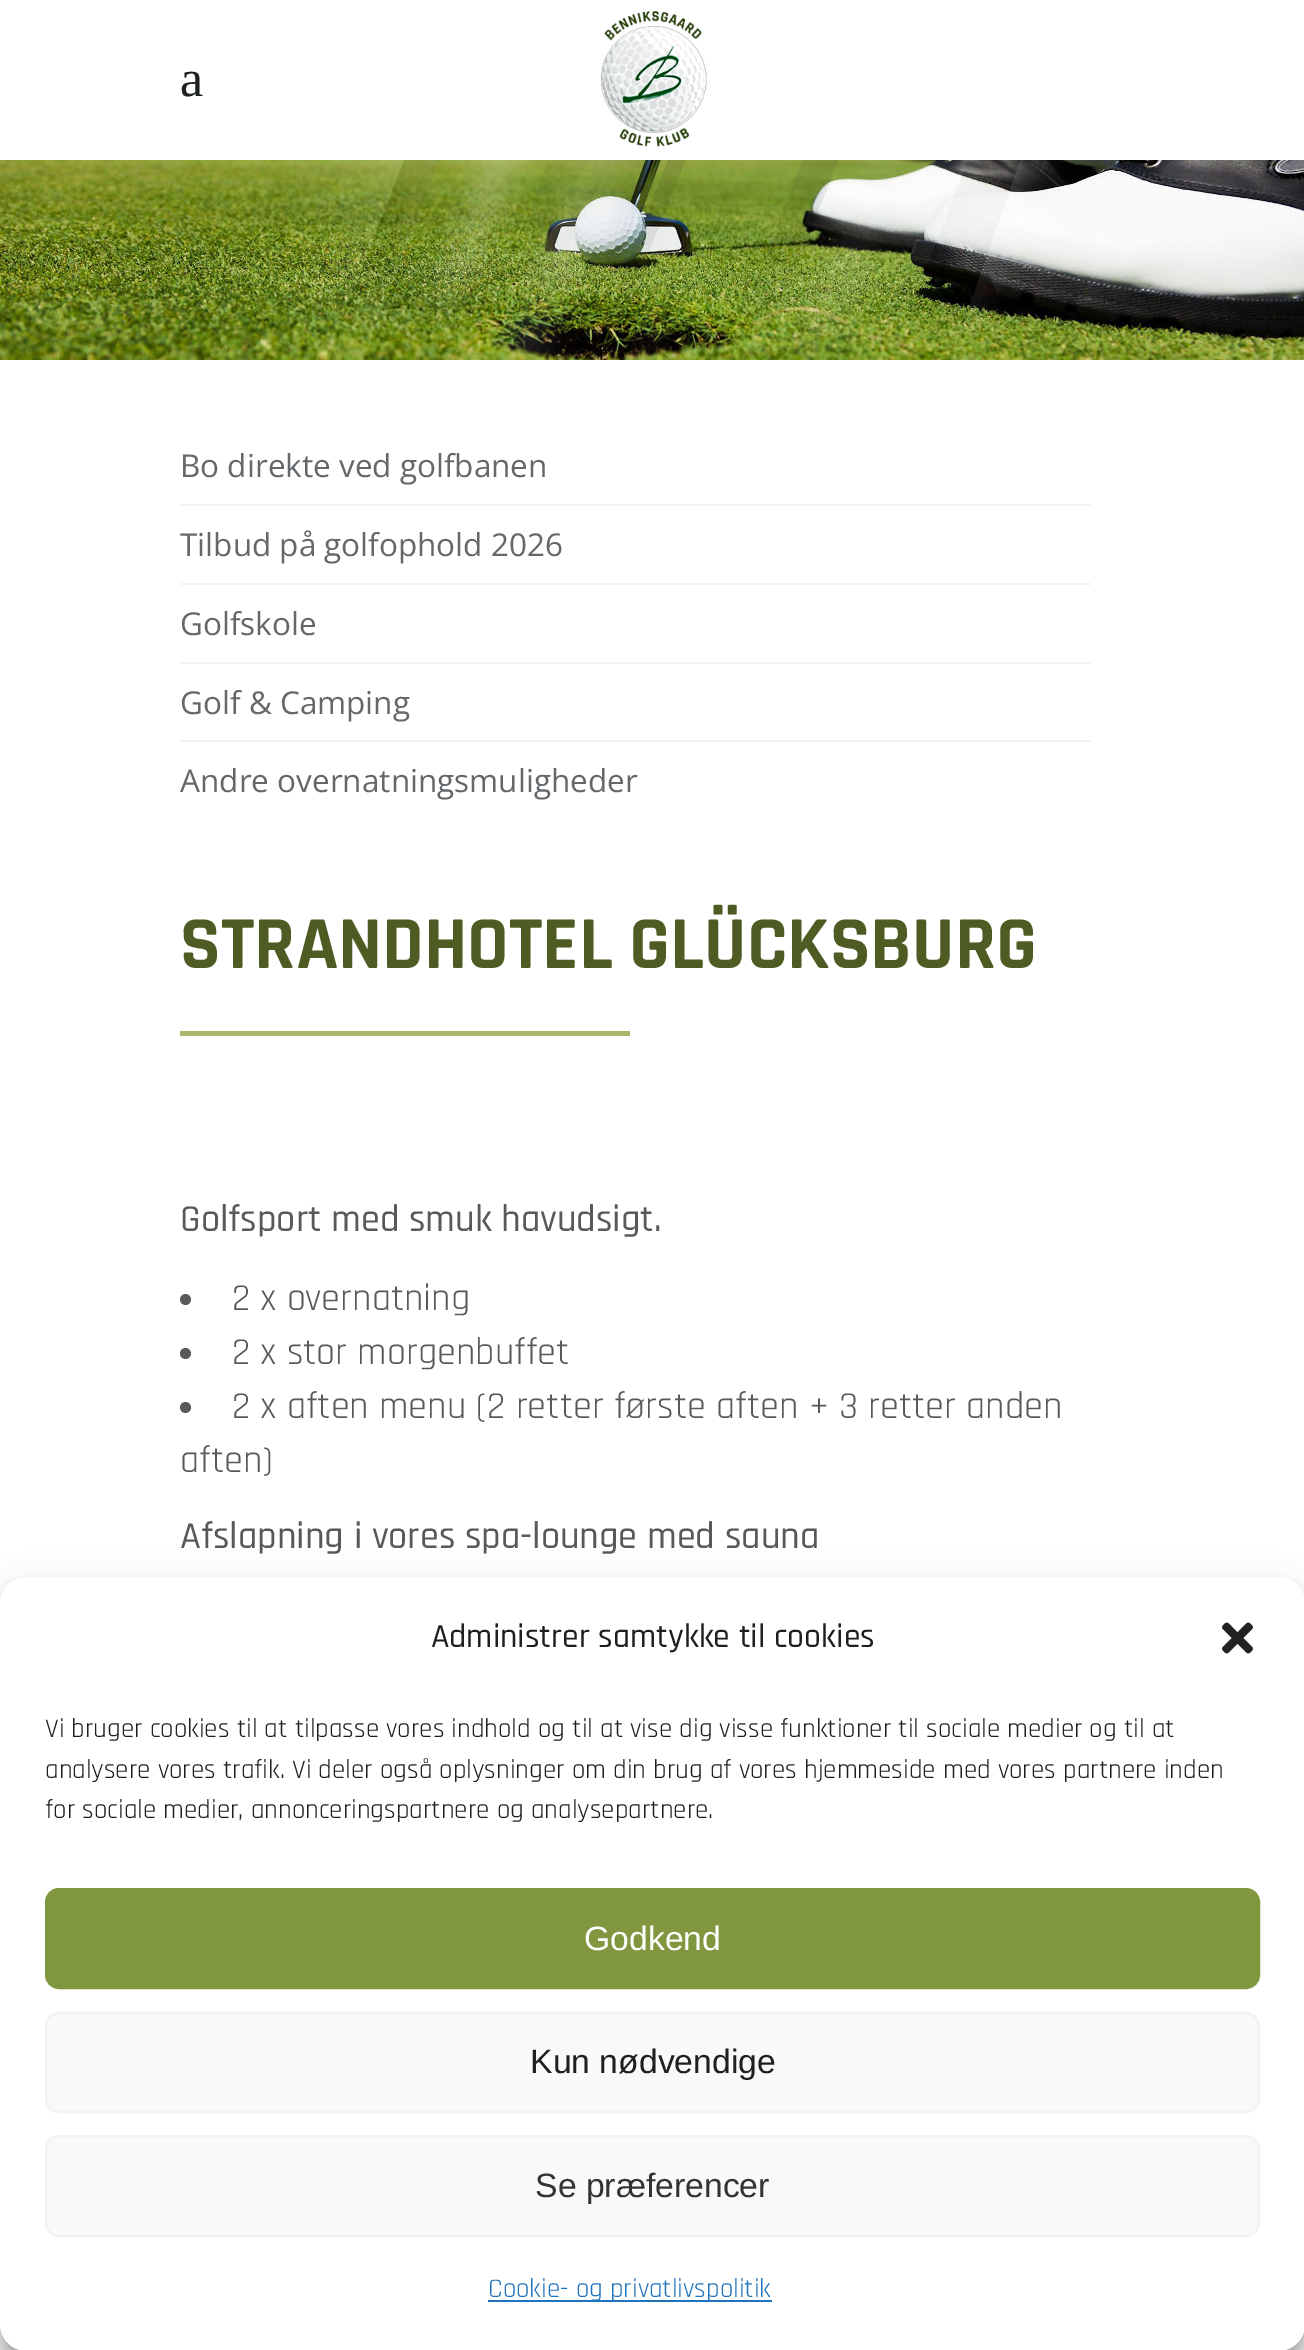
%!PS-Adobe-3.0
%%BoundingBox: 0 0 1304 2350
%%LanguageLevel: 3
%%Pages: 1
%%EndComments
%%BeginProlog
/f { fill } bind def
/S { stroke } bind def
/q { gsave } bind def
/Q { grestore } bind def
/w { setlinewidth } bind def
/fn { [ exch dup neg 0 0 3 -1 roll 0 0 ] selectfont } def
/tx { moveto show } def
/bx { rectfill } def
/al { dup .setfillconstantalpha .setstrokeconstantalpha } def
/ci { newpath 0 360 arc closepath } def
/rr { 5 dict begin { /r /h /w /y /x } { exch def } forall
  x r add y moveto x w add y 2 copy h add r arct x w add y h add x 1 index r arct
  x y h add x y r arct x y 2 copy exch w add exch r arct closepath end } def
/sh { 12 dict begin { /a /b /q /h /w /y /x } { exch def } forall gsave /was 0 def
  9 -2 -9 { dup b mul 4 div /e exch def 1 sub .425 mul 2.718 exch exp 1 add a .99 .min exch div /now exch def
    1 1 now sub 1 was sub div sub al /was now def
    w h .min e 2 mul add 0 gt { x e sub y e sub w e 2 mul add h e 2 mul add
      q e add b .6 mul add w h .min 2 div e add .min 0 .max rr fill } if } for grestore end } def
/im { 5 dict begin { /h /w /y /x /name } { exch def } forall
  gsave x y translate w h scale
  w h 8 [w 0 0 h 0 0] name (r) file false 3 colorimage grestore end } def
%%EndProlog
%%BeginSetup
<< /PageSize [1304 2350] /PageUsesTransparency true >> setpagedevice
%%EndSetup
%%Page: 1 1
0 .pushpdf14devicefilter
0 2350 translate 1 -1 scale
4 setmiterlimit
1 setgray
0 0 1304 2350 bx
/LiberationSerif-Regular 52 fn
0.114 0.125 0.133 setrgbcolor
(a) 180 96 tx
(image0.raw) 600 11 107 136 im
(image1.raw) 0 160 1304 200 im
0.953 0.953 0.957 setrgbcolor
180 504 911 2 bx
/OpenSans-Regular 31.5 fn
0.392 0.408 0.42 setrgbcolor
(Bo direkte ved golfbanen) 180 477 tx
0.953 0.953 0.957 setrgbcolor
180 583 911 2 bx
0.392 0.408 0.42 setrgbcolor
(Tilbud på golfophold 2026) 180 556 tx
0.953 0.953 0.957 setrgbcolor
180 662 911 2 bx
0.392 0.408 0.42 setrgbcolor
(Golfskole) 180 635 tx
0.953 0.953 0.957 setrgbcolor
180 740 911 2 bx
0.392 0.408 0.42 setrgbcolor
(Golf & Camping) 180 714 tx
(Andre overnatningsmuligheder) 180 792 tx
/Rajdhani-Bold 75.6 fn
0.306 0.361 0.141 setrgbcolor
(STRANDHOTEL GLÜCKSBURG) 180 968 tx
0.663 0.718 0.424 setrgbcolor
180 1031 450 5 bx
/Rajdhani-Medium 38.25 fn
0.349 setgray
(Golfsport med smuk havudsigt.) 180 1231 tx
185.5 1299.5 5.5 ci f
/Rajdhani-Regular 38.25 fn
(2 x overnatning) 232 1310 tx
185.5 1353.5 5.5 ci f
(2 x stor morgenbuffet) 232 1364 tx
185.5 1407.5 5.5 ci f
(2 x aften menu \(2 retter første aften + 3 retter anden) 232 1418 tx
(aften\)) 180 1472 tx
/Rajdhani-Medium 38.25 fn
(Afslapning i vores spa-lounge med sauna) 180 1548 tx
0 setgray
0 1591 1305 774 27 7 0.23 sh
0 1600 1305 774 27 22.5 0.19 sh
1 setgray
0 1577 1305 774 27 rr f
/Rajdhani-Medium 33.75 fn
0.114 0.125 0.133 setrgbcolor
(Administrer samtykke til cookies) 431 1647 tx
(image2.raw) 1222 1622 31 32 im
/Rajdhani-Regular 27 fn
(Vi bruger cookies til at tilpasse vores indhold og til at vise dig visse funktioner til sociale medier og til at) 45 1737 tx
(analysere vores trafik. Vi deler også oplysninger om din brug af vores hjemmeside med vores partnere inden) 45 1778 tx
(for sociale medier, annonceringspartnere og analysepartnere.) 45 1818 tx
0.502 0.592 0.247 setrgbcolor
46 1889 1213 99 13 rr q f Q
2 w
S
/LiberationSans-Regular 33.75 fn
1 setgray
(Godkend) 584 1950 tx
0.976 setgray
46 2013 1213 99 13 rr q f Q
0.949 setgray
S
0.114 0.125 0.133 setrgbcolor
(Kun nødvendige) 530 2073 tx
0.976 setgray
46 2136 1213 100 13 rr q f Q
0.949 setgray
S
0.2 setgray
(Se præferencer) 535 2197 tx
0.118 0.451 0.745 setrgbcolor
488 2300 284 2 bx
/Rajdhani-Regular 27 fn
(Cookie- og privatlivspolitik) 488 2297 tx
.poppdf14devicefilter showpage
%%EOF
